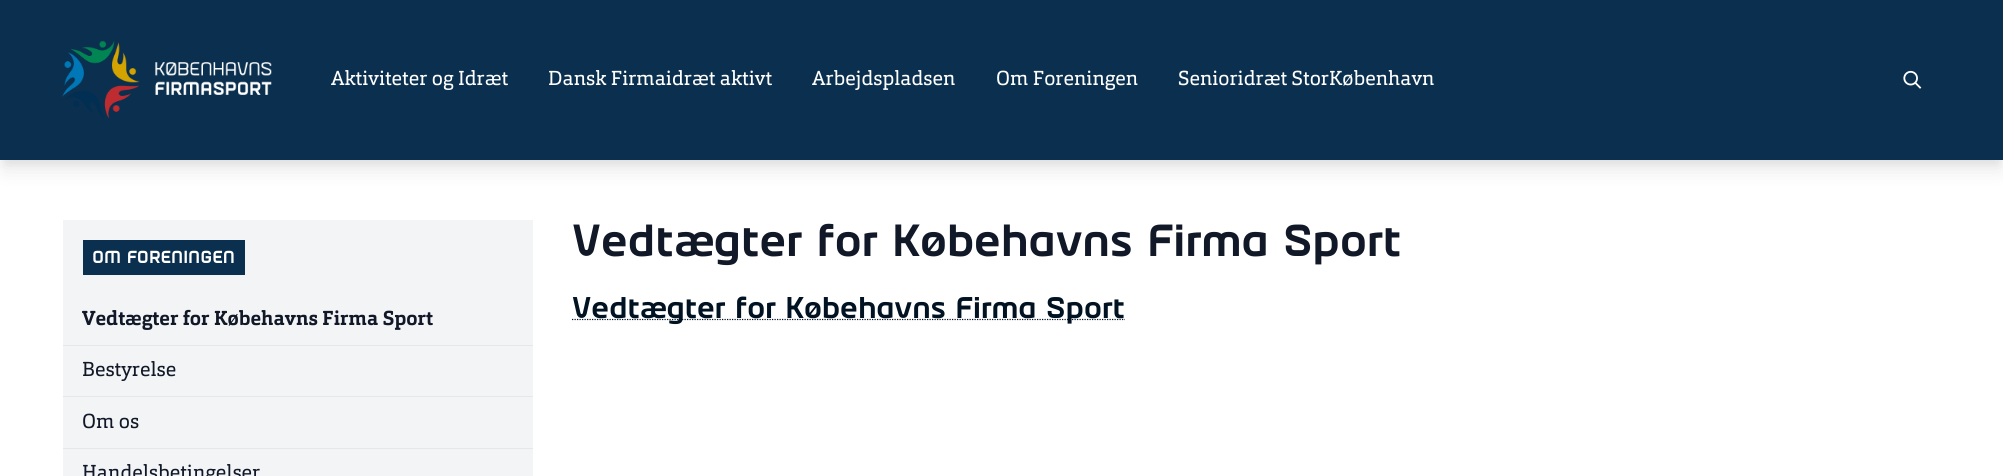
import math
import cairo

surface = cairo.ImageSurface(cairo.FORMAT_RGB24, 2003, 476)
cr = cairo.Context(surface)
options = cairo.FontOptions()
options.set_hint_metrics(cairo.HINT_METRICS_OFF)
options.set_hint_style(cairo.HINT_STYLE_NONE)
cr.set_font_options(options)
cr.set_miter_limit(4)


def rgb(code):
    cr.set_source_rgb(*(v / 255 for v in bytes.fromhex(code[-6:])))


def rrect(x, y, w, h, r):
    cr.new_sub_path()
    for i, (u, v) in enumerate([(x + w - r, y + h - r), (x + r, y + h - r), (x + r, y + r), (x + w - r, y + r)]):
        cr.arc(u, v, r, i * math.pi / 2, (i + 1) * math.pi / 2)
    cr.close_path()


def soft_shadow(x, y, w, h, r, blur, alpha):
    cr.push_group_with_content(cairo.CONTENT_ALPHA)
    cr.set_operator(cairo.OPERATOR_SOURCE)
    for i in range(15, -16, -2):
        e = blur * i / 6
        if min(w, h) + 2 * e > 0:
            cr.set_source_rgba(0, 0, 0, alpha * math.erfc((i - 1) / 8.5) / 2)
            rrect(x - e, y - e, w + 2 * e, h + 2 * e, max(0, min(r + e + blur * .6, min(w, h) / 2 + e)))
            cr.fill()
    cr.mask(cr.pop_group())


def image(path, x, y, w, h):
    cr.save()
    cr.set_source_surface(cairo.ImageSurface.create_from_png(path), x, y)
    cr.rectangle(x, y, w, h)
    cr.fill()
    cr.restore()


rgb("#ffffff")
cr.paint()
rgb("#000000")
soft_shadow(3, 8, 1998, 155, 0, 4, 0.05)
soft_shadow(4, 16, 1996, 153, 0, 9.5, 0.1)
rgb("#0b304f")
cr.rectangle(0, 0, 2003, 160)
cr.fill()
image("img/1.png", 62, 40, 210, 78)
image("img/2.png", 1903, 70, 19, 19)
for x, y, w, h, color in [
    (63, 220, 470, 256, "#f3f4f6"),
    (83, 240, 162, 35, "#0b304f"),
    (63, 345, 470, 1, "#e5e7eb"),
    (63, 396, 470, 1, "#e5e7eb"),
    (63, 448, 470, 1, "#e5e7eb"),
]:
    rgb(color)
    cr.rectangle(x, y, w, h)
    cr.fill()
cr.new_path()
cr.move_to(572, 319.5)
cr.line_to(1125, 319.5)
rgb("#011222")
cr.set_line_width(1.2)
cr.set_dash([1.25, 1.25])
cr.stroke()
cr.select_font_face("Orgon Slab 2")
cr.set_font_size(20)
rgb("#ffffff")
for x, y, s in [
    (331, 85, "Aktiviteter og Idræt"),
    (548, 85, "Dansk Firmaidræt aktivt"),
    (812, 85, "Arbejdspladsen"),
    (996, 85, "Om Foreningen"),
    (1178, 85, "Senioridræt StorKøbenhavn"),
]:
    cr.move_to(x, y)
    cr.show_text(s)
cr.select_font_face("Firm", cairo.FONT_SLANT_NORMAL, cairo.FONT_WEIGHT_BOLD)
cr.set_font_size(17.5)
cr.move_to(92, 263)
cr.show_text("OM FORENINGEN")
cr.select_font_face("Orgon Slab")
cr.set_font_size(20)
rgb("#111827")
cr.move_to(82, 325)
cr.show_text("Vedtægter for Købehavns Firma Sport")
cr.select_font_face("Orgon Slab 2")
for x, y, s in [
    (82, 376, "Bestyrelse"),
    (82, 428, "Om os"),
    (82, 479, "Handelsbetingelser"),
]:
    cr.move_to(x, y)
    cr.show_text(s)
cr.select_font_face("Firm", cairo.FONT_SLANT_NORMAL, cairo.FONT_WEIGHT_BOLD)
cr.set_font_size(45)
cr.move_to(572, 256)
cr.show_text("Vedtægter for Købehavns Firma Sport")
cr.set_font_size(30)
rgb("#011222")
cr.move_to(572, 318)
cr.show_text("Vedtægter for Købehavns Firma Sport")
surface.write_to_png("page.png")
